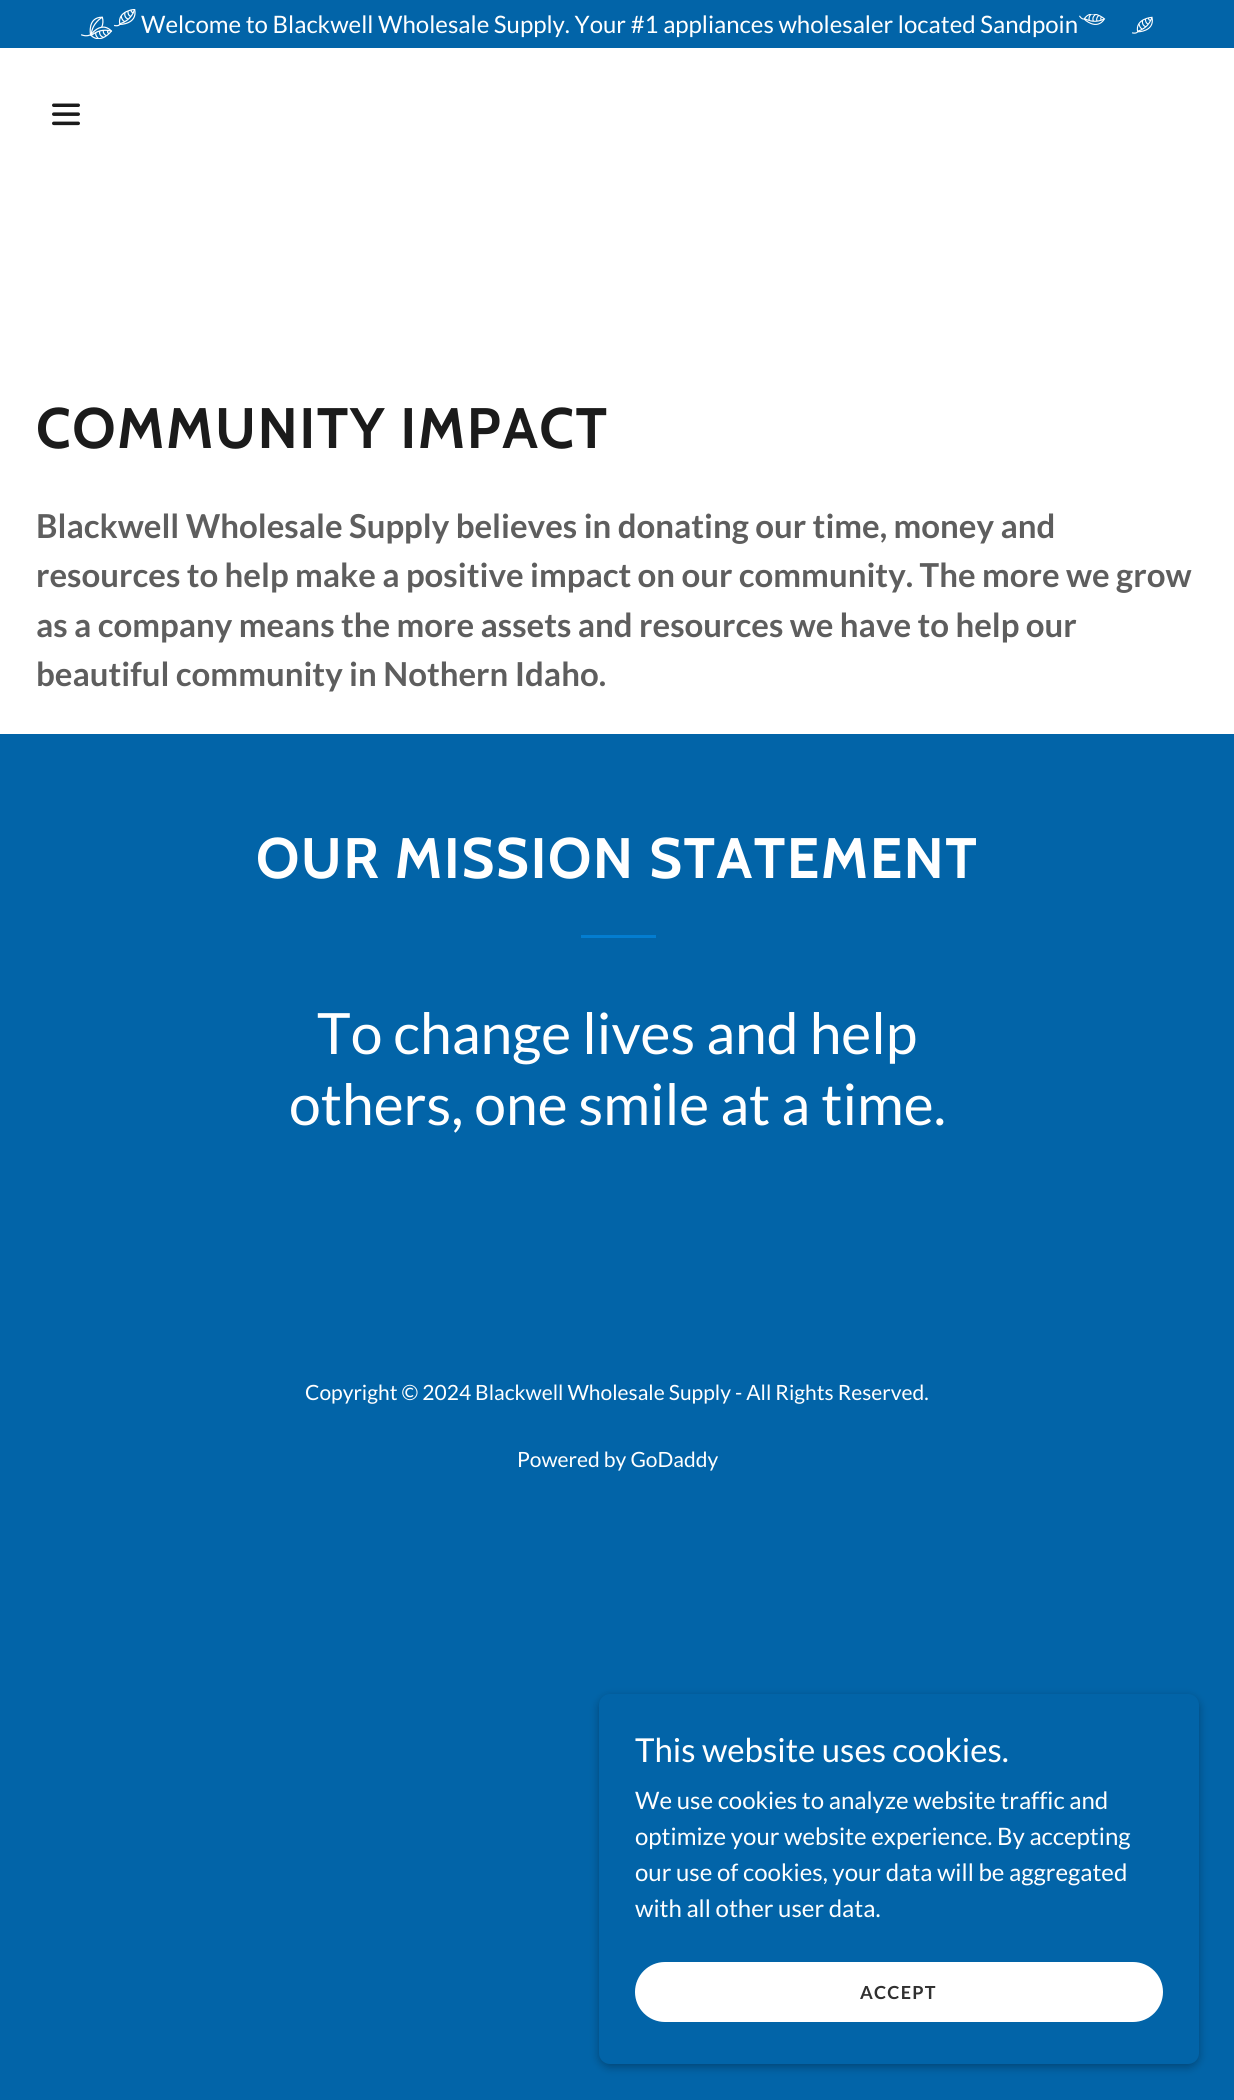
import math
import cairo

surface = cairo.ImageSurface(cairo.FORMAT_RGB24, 1234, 2100)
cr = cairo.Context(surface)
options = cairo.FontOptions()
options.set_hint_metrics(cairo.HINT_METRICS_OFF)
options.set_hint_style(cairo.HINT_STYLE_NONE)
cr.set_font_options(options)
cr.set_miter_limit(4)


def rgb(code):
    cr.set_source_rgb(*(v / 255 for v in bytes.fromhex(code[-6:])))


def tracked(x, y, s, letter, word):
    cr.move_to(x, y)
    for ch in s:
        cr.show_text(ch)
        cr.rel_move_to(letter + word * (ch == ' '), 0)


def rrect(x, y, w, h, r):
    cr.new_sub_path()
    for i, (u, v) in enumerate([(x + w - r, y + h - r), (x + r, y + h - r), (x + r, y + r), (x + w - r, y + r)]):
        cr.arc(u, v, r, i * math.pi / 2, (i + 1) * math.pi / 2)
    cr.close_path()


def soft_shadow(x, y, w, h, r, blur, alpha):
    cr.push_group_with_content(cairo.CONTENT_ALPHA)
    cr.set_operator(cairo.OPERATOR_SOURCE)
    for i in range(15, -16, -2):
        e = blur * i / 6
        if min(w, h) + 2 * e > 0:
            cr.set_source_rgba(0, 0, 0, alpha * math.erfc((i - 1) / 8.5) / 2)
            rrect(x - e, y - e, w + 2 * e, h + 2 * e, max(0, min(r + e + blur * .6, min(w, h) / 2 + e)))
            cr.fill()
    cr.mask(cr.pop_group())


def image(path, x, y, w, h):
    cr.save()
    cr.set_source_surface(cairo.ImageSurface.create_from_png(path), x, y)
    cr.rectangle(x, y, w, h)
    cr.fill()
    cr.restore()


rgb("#0264a8")
cr.paint()
rgb("#ffffff")
cr.rectangle(0, 48, 1234, 686)
cr.fill()
image("img/1.png", 81, 9, 55, 30)
image("img/2.png", 1079, 14, 74, 20)
image("img/3.png", 52, 103, 28, 23)
rgb("#037dd1")
cr.rectangle(581, 935, 75, 3)
cr.fill()
rgb("#000000")
soft_shadow(599, 1697, 600, 370, 11, 4.5, 0.3)
rgb("#0264a8")
rrect(599, 1694, 600, 370, 11)
cr.fill()
rgb("#ffffff")
rrect(635, 1962, 528, 60, 30)
cr.fill()
cr.select_font_face("Lato")
cr.set_font_size(24)
cr.move_to(141, 33)
cr.show_text("Welcome to Blackwell Wholesale Supply. Your #1 appliances wholesaler located Sandpoin")
cr.select_font_face("Cabin", cairo.FONT_SLANT_NORMAL, cairo.FONT_WEIGHT_BOLD)
cr.set_font_size(57)
rgb("#1b1b1b")
tracked(36, 448, "COMMUNITY IMPACT", 1.5, 0)
cr.select_font_face("Lato", cairo.FONT_SLANT_NORMAL, cairo.FONT_WEIGHT_BOLD)
cr.set_font_size(33)
rgb("#5e5e5e")
for x, y, s in [
    (36, 538, "Blackwell Wholesale Supply believes in donating our time, money and"),
    (36, 587, "resources to help make a positive impact on our community. The more we grow"),
    (36, 637, "as a company means the more assets and resources we have to help our"),
    (36, 686, "beautiful community in Nothern Idaho."),
]:
    cr.move_to(x, y)
    cr.show_text(s)
cr.select_font_face("Cabin", cairo.FONT_SLANT_NORMAL, cairo.FONT_WEIGHT_BOLD)
cr.set_font_size(57)
rgb("#ffffff")
tracked(256, 878, "OUR MISSION STATEMENT", 1.5, 0)
cr.select_font_face("Lato")
cr.move_to(317, 1054)
cr.show_text("To change lives and help")
cr.move_to(289, 1125)
cr.show_text("others, one smile at a time.")
cr.set_font_size(21)
cr.move_to(305, 1400)
cr.show_text("Copyright © 2024 Blackwell Wholesale Supply - All Rights Reserved.")
cr.move_to(517, 1467)
cr.show_text("Powered by GoDaddy")
cr.set_font_size(33)
cr.move_to(635, 1762)
cr.show_text("This website uses cookies.")
cr.set_font_size(24)
for x, y, s in [
    (635, 1809, "We use cookies to analyze website traffic and"),
    (635, 1845, "optimize your website experience. By accepting"),
    (635, 1881, "our use of cookies, your data will be aggregated"),
    (635, 1917, "with all other user data."),
]:
    cr.move_to(x, y)
    cr.show_text(s)
cr.select_font_face("Lato", cairo.FONT_SLANT_NORMAL, cairo.FONT_WEIGHT_BOLD)
cr.set_font_size(18)
rgb("#303030")
tracked(860, 1999, "ACCEPT", 1.25, 0)
surface.write_to_png("page.png")
